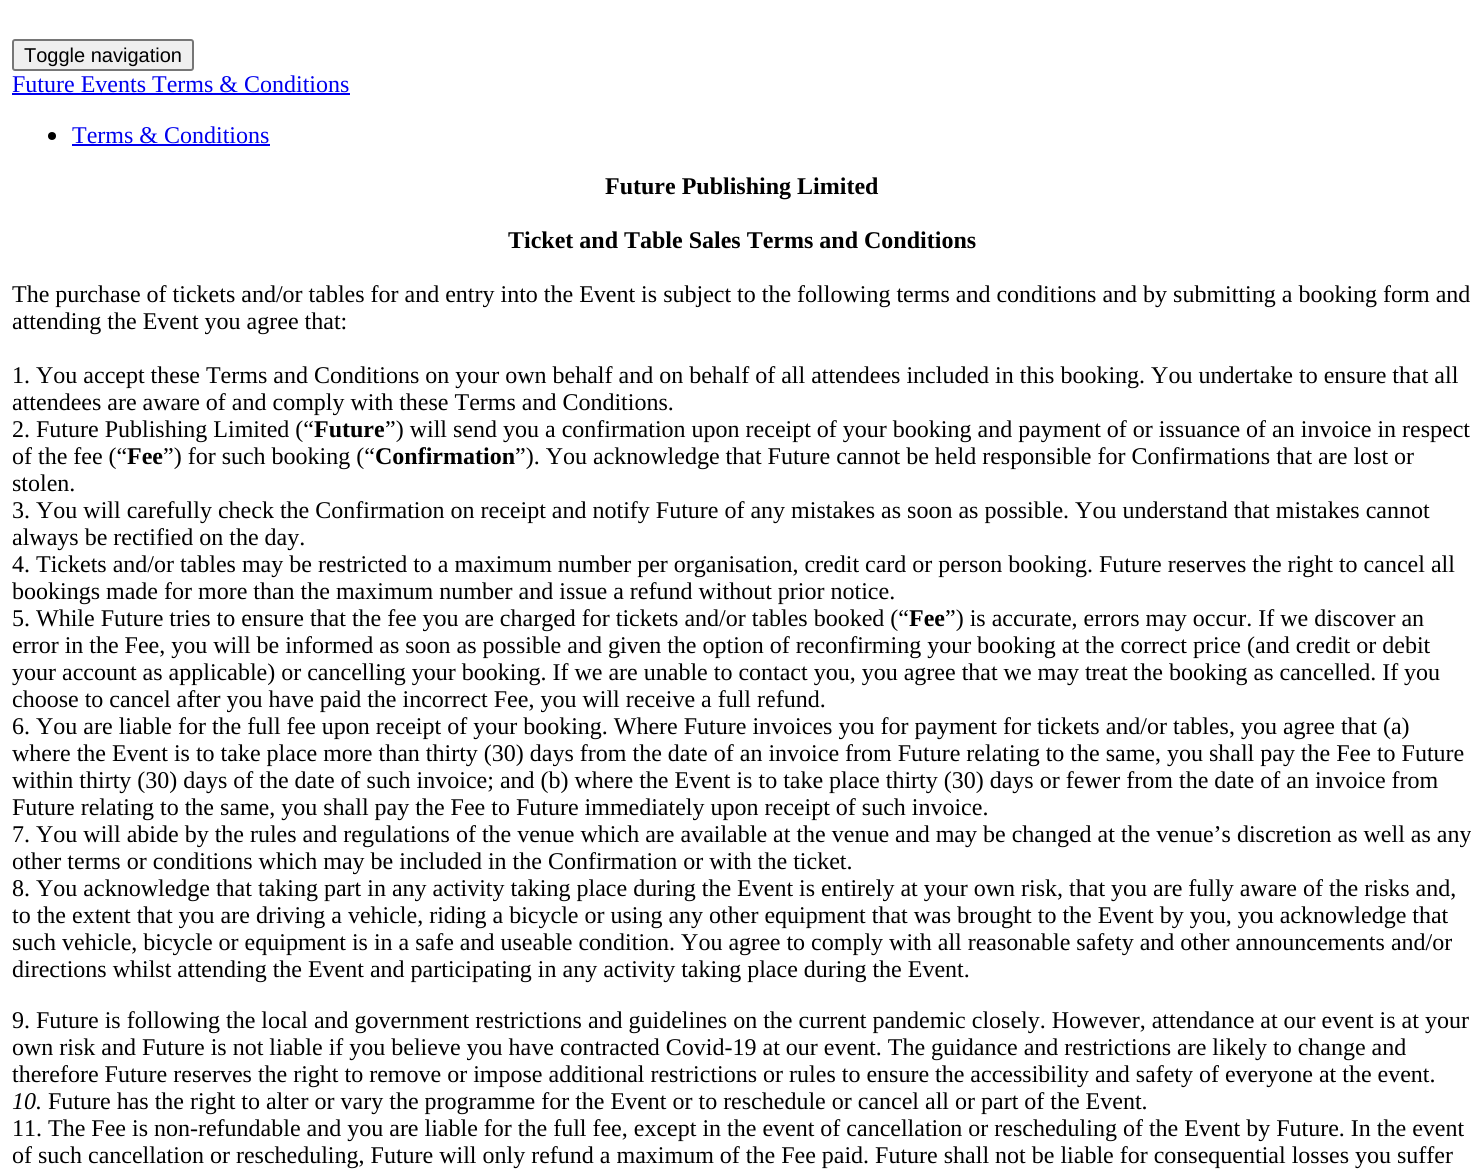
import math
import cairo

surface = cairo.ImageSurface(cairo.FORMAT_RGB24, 1483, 1171)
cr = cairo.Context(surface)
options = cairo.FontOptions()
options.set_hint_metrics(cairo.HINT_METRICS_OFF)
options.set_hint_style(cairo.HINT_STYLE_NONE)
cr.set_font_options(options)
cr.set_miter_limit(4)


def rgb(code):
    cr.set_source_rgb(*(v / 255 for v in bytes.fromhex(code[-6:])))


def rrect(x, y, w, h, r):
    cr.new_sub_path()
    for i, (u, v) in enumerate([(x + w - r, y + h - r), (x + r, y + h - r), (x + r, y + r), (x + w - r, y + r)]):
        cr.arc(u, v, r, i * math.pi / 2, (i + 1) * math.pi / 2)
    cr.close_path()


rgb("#ffffff")
cr.paint()
rgb("#efefef")
rrect(13, 40, 180, 30, 2)
cr.fill_preserve()
rgb("#767676")
cr.stroke()
rgb("#0000ee")
cr.rectangle(12, 93, 338, 2)
cr.fill()
rgb("#000000")
cr.arc(52, 136, 4, 0, 2 * math.pi)
cr.fill()
rgb("#0000ee")
cr.rectangle(72, 144, 198, 2)
cr.fill()
cr.select_font_face("Liberation Sans")
cr.set_font_size(20)
rgb("#000000")
cr.move_to(24, 62)
cr.show_text("Toggle navigation")
cr.select_font_face("Liberation Serif")
cr.set_font_size(24)
rgb("#0000ee")
cr.move_to(12, 92)
cr.show_text("Future Events Terms & Conditions")
cr.move_to(72, 143)
cr.show_text("Terms & Conditions")
cr.select_font_face("Liberation Serif", cairo.FONT_SLANT_NORMAL, cairo.FONT_WEIGHT_BOLD)
rgb("#000000")
cr.move_to(605, 194)
cr.show_text("Future Publishing Limited")
cr.move_to(508, 248)
cr.show_text("Ticket and Table Sales Terms and Conditions")
cr.select_font_face("Liberation Serif")
for x, y, s in [
    (12, 302, "The purchase of tickets and/or tables for and entry into the Event is subject to the following terms and conditions and by submitting a booking form and"),
    (12, 329, "attending the Event you agree that:"),
    (12, 383, "1. You accept these Terms and Conditions on your own behalf and on behalf of all attendees included in this booking. You undertake to ensure that all"),
    (12, 410, "attendees are aware of and comply with these Terms and Conditions."),
    (12, 437, "2. Future Publishing Limited (“"),
]:
    cr.move_to(x, y)
    cr.show_text(s)
cr.select_font_face("Liberation Serif", cairo.FONT_SLANT_NORMAL, cairo.FONT_WEIGHT_BOLD)
cr.move_to(314, 437)
cr.show_text("Future")
cr.select_font_face("Liberation Serif")
cr.move_to(385, 437)
cr.show_text("”) will send you a confirmation upon receipt of your booking and payment of or issuance of an invoice in respect")
cr.move_to(12, 464)
cr.show_text("of the fee (“")
cr.select_font_face("Liberation Serif", cairo.FONT_SLANT_NORMAL, cairo.FONT_WEIGHT_BOLD)
cr.move_to(127, 464)
cr.show_text("Fee")
cr.select_font_face("Liberation Serif")
cr.move_to(163, 464)
cr.show_text("”) for such booking (“")
cr.select_font_face("Liberation Serif", cairo.FONT_SLANT_NORMAL, cairo.FONT_WEIGHT_BOLD)
cr.move_to(375, 464)
cr.show_text("Confirmation")
cr.select_font_face("Liberation Serif")
for x, y, s in [
    (515, 464, "”). You acknowledge that Future cannot be held responsible for Confirmations that are lost or"),
    (12, 491, "stolen."),
    (12, 518, "3. You will carefully check the Confirmation on receipt and notify Future of any mistakes as soon as possible. You understand that mistakes cannot"),
    (12, 545, "always be rectified on the day."),
    (12, 572, "4. Tickets and/or tables may be restricted to a maximum number per organisation, credit card or person booking. Future reserves the right to cancel all"),
    (12, 599, "bookings made for more than the maximum number and issue a refund without prior notice."),
    (12, 626, "5. While Future tries to ensure that the fee you are charged for tickets and/or tables booked (“"),
]:
    cr.move_to(x, y)
    cr.show_text(s)
cr.select_font_face("Liberation Serif", cairo.FONT_SLANT_NORMAL, cairo.FONT_WEIGHT_BOLD)
cr.move_to(909, 626)
cr.show_text("Fee")
cr.select_font_face("Liberation Serif")
for x, y, s in [
    (945, 626, "”) is accurate, errors may occur. If we discover an"),
    (12, 653, "error in the Fee, you will be informed as soon as possible and given the option of reconfirming your booking at the correct price (and credit or debit"),
    (12, 680, "your account as applicable) or cancelling your booking. If we are unable to contact you, you agree that we may treat the booking as cancelled. If you"),
    (12, 707, "choose to cancel after you have paid the incorrect Fee, you will receive a full refund."),
    (12, 734, "6. You are liable for the full fee upon receipt of your booking. Where Future invoices you for payment for tickets and/or tables, you agree that (a)"),
    (12, 761, "where the Event is to take place more than thirty (30) days from the date of an invoice from Future relating to the same, you shall pay the Fee to Future"),
    (12, 788, "within thirty (30) days of the date of such invoice; and (b) where the Event is to take place thirty (30) days or fewer from the date of an invoice from"),
    (12, 815, "Future relating to the same, you shall pay the Fee to Future immediately upon receipt of such invoice."),
    (12, 842, "7. You will abide by the rules and regulations of the venue which are available at the venue and may be changed at the venue’s discretion as well as any"),
    (12, 869, "other terms or conditions which may be included in the Confirmation or with the ticket."),
    (12, 896, "8. You acknowledge that taking part in any activity taking place during the Event is entirely at your own risk, that you are fully aware of the risks and,"),
    (12, 923, "to the extent that you are driving a vehicle, riding a bicycle or using any other equipment that was brought to the Event by you, you acknowledge that"),
    (12, 950, "such vehicle, bicycle or equipment is in a safe and useable condition. You agree to comply with all reasonable safety and other announcements and/or"),
    (12, 977, "directions whilst attending the Event and participating in any activity taking place during the Event."),
    (12, 1028, "9. Future is following the local and government restrictions and guidelines on the current pandemic closely. However, attendance at our event is at your"),
    (12, 1055, "own risk and Future is not liable if you believe you have contracted Covid-19 at our event. The guidance and restrictions are likely to change and"),
    (12, 1082, "therefore Future reserves the right to remove or impose additional restrictions or rules to ensure the accessibility and safety of everyone at the event."),
]:
    cr.move_to(x, y)
    cr.show_text(s)
cr.select_font_face("Liberation Serif", cairo.FONT_SLANT_ITALIC)
cr.move_to(12, 1109)
cr.show_text("10.")
cr.select_font_face("Liberation Serif")
for x, y, s in [
    (48, 1109, "Future has the right to alter or vary the programme for the Event or to reschedule or cancel all or part of the Event."),
    (12, 1136, "11. The Fee is non-refundable and you are liable for the full fee, except in the event of cancellation or rescheduling of the Event by Future. In the event"),
    (12, 1163, "of such cancellation or rescheduling, Future will only refund a maximum of the Fee paid. Future shall not be liable for consequential losses you suffer"),
]:
    cr.move_to(x, y)
    cr.show_text(s)
surface.write_to_png("page.png")
